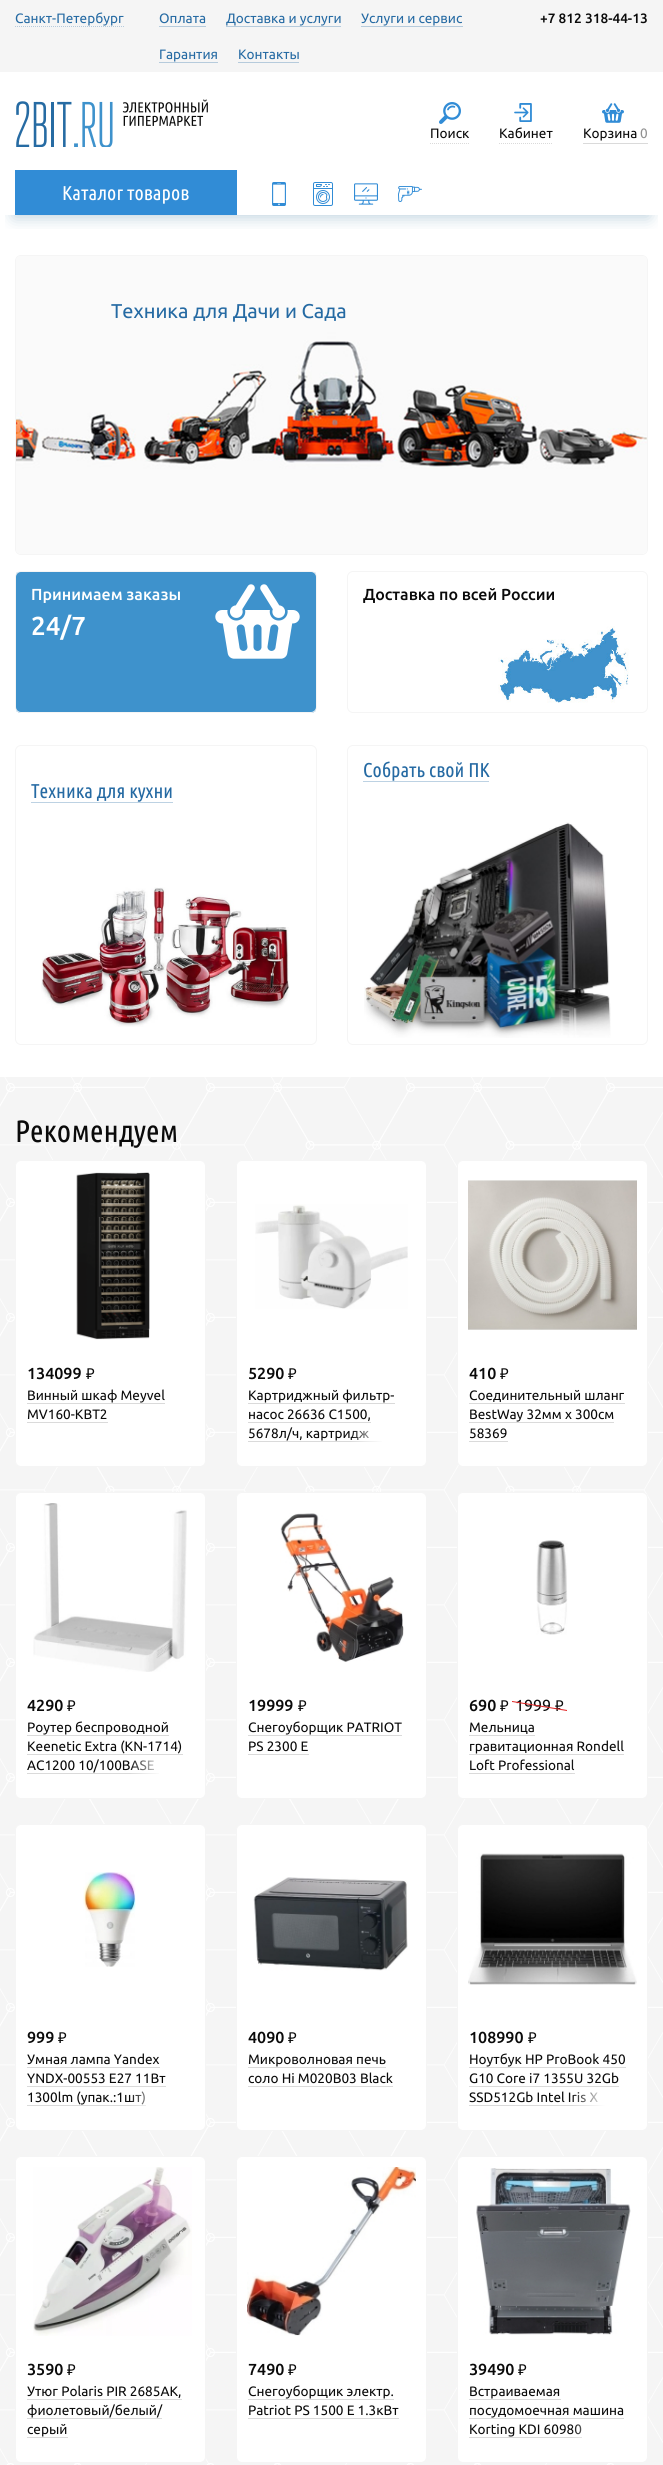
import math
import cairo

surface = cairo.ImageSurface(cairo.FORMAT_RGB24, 663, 2465)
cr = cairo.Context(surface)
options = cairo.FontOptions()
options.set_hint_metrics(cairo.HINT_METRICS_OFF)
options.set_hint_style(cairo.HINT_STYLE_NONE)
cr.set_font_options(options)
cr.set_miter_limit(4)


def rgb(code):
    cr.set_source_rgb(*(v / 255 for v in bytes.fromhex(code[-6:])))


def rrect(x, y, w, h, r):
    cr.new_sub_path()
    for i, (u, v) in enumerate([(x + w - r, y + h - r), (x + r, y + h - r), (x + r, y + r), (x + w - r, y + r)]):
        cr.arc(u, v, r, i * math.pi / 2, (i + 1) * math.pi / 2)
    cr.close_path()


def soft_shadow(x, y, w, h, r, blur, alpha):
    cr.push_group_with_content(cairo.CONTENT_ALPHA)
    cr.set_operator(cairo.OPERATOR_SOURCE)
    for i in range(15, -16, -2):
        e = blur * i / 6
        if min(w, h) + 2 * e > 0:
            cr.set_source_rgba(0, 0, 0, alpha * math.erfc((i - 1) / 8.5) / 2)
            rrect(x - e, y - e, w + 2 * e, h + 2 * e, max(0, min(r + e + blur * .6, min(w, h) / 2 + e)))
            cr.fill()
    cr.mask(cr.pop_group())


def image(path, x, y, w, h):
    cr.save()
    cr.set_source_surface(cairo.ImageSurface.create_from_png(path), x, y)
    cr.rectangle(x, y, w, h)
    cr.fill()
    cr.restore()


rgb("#ffffff")
cr.paint()
rgb("#f5f5f5")
cr.rectangle(0, 0, 663, 72)
cr.fill()
cr.new_path()
cr.move_to(15, 26.5)
cr.line_to(124, 26.5)
rgb("#b6cbdc")
cr.set_line_width(1)
cr.set_dash([1, 1])
cr.stroke()
for x, y, w, h, color in [
    (159, 26, 47, 1, "#b6cbdc"),
    (226, 26, 115, 1, "#b6cbdc"),
    (361, 26, 102, 1, "#b6cbdc"),
    (159, 62, 59, 1, "#b6cbdc"),
    (238, 62, 61, 1, "#b6cbdc"),
]:
    rgb(color)
    cr.rectangle(x, y, w, h)
    cr.fill()
image("img/1.png", 16, 99, 192, 48)
cr.new_path()
cr.move_to(430, 143.5)
cr.line_to(469, 143.5)
rgb("#dadada")
cr.stroke()
image("img/2.png", 439, 102, 22, 22)
cr.new_path()
cr.move_to(499, 143.5)
cr.line_to(553, 143.5)
cr.stroke()
image("img/3.png", 514, 103, 18, 19)
cr.rectangle(583, 143, 65, 1)
cr.fill()
image("img/4.png", 602, 103, 22, 20)
cr.save()
cr.rectangle(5, 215, 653, 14)
cr.clip()
rgb("#1d628c")
soft_shadow(14, 200, 635, 17, 0, 8, 0.3)
cr.restore()
rgb("#318cd6")
cr.rectangle(15, 170, 222, 45)
cr.fill()
image("img/5.png", 272, 182, 14, 24)
image("img/6.png", 313, 182, 20, 24)
image("img/7.png", 354, 183, 24, 22)
image("img/8.png", 398, 186, 24, 16)
rrect(15.5, 255.5, 632, 299, 5.5)
rgb("#f5f5f5")
cr.set_dash([])
cr.stroke()
image("img/9.png", 16, 256, 631, 298)
image("img/10.png", 16, 572, 300, 141)
rrect(15.5, 571.5, 301, 141, 5.5)
cr.stroke()
image("img/11.png", 215, 584, 85, 75)
rrect(347.5, 571.5, 300, 141, 5.5)
cr.stroke()
image("img/12.png", 498, 626, 131, 77)
image("img/13.png", 364, 822, 247, 216)
rrect(347.5, 745.5, 300, 299, 5.5)
cr.stroke()
rgb("#bdd2e3")
cr.rectangle(363, 781, 126, 1)
cr.fill()
image("img/14.png", 41, 887, 249, 140)
rrect(15.5, 745.5, 301, 299, 5.5)
rgb("#f5f5f5")
cr.stroke()
rgb("#bdd2e3")
cr.rectangle(31, 802, 142, 1)
cr.fill()
rgb("#f5f5f5")
cr.rectangle(0, 1077, 663, 1388)
cr.fill()
image("img/15.png", 0, 1077, 663, 1388)
rgb("#ffffff")
rrect(15.5, 1160.5, 190, 306, 5.5)
cr.fill_preserve()
rgb("#f5f5f5")
cr.stroke()
rgb("#dadada")
cr.rectangle(27, 1403, 138, 1)
cr.fill()
cr.rectangle(27, 1422, 81, 1)
cr.fill()
image("img/16.png", 76, 1172, 74, 168)
rgb("#ffffff")
rrect(236.5, 1160.5, 190, 306, 5.5)
cr.fill_preserve()
rgb("#f5f5f5")
cr.stroke()
for x, y, w, h, color in [
    (248, 1403, 147, 1, "#dadada"),
    (248, 1422, 123, 1, "#dadada"),
    (248, 1441, 134, 1, "#dadada"),
]:
    rgb(color)
    cr.rectangle(x, y, w, h)
    cr.fill()
image("img/17.png", 255, 1204, 153, 105)
rgb("#ffffff")
rrect(457.5, 1160.5, 190, 306, 5.5)
cr.fill_preserve()
rgb("#f5f5f5")
cr.stroke()
for x, y, w, h, color in [
    (469, 1403, 156, 1, "#dadada"),
    (469, 1422, 145, 1, "#dadada"),
    (469, 1441, 39, 1, "#dadada"),
]:
    rgb(color)
    cr.rectangle(x, y, w, h)
    cr.fill()
image("img/18.png", 468, 1180, 169, 150)
rgb("#ffffff")
rrect(15.5, 1492.5, 190, 306, 5.5)
cr.fill_preserve()
rgb("#f5f5f5")
cr.stroke()
for x, y, w, h, color in [
    (27, 1735, 142, 1, "#dadada"),
    (27, 1754, 156, 1, "#dadada"),
    (27, 1773, 132, 1, "#dadada"),
]:
    rgb(color)
    cr.rectangle(x, y, w, h)
    cr.fill()
image("img/19.png", 33, 1503, 154, 169)
rgb("#ffffff")
rrect(236.5, 1492.5, 190, 306, 5.5)
cr.fill_preserve()
rgb("#f5f5f5")
cr.stroke()
rgb("#dadada")
cr.rectangle(248, 1735, 154, 1)
cr.fill()
cr.rectangle(248, 1754, 61, 1)
cr.fill()
image("img/20.png", 280, 1513, 124, 149)
rgb("#ffffff")
rrect(457.5, 1492.5, 190, 306, 5.5)
cr.fill_preserve()
rgb("#f5f5f5")
cr.stroke()
for x, y, w, h, color in [
    (469, 1735, 66, 1, "#dadada"),
    (469, 1754, 155, 1, "#dadada"),
    (469, 1773, 106, 1, "#dadada"),
]:
    rgb(color)
    cr.rectangle(x, y, w, h)
    cr.fill()
image("img/21.png", 536, 1540, 32, 95)
rgb("#ffffff")
rrect(15.5, 1824.5, 190, 306, 5.5)
cr.fill_preserve()
rgb("#f5f5f5")
cr.stroke()
for x, y, w, h, color in [
    (27, 2067, 133, 1, "#dadada"),
    (27, 2086, 139, 1, "#dadada"),
    (27, 2105, 119, 1, "#dadada"),
]:
    rgb(color)
    cr.rectangle(x, y, w, h)
    cr.fill()
image("img/22.png", 83, 1872, 53, 95)
rgb("#ffffff")
rrect(236.5, 1824.5, 190, 306, 5.5)
cr.fill_preserve()
rgb("#f5f5f5")
cr.stroke()
rgb("#dadada")
cr.rectangle(248, 2067, 138, 1)
cr.fill()
cr.rectangle(248, 2086, 145, 1)
cr.fill()
image("img/23.png", 253, 1877, 155, 94)
rgb("#ffffff")
rrect(457.5, 1824.5, 190, 306, 5.5)
cr.fill_preserve()
rgb("#f5f5f5")
cr.stroke()
for x, y, w, h, color in [
    (469, 2067, 157, 1, "#dadada"),
    (469, 2086, 150, 1, "#dadada"),
    (469, 2105, 137, 1, "#dadada"),
]:
    rgb(color)
    cr.rectangle(x, y, w, h)
    cr.fill()
image("img/24.png", 468, 1853, 169, 132)
rgb("#ffffff")
rrect(15.5, 2156.5, 190, 306, 5.5)
cr.fill_preserve()
rgb("#f5f5f5")
cr.stroke()
for x, y, w, h, color in [
    (27, 2399, 155, 1, "#dadada"),
    (27, 2418, 135, 1, "#dadada"),
    (27, 2437, 41, 1, "#dadada"),
]:
    rgb(color)
    cr.rectangle(x, y, w, h)
    cr.fill()
image("img/25.png", 33, 2167, 159, 169)
rgb("#ffffff")
rrect(236.5, 2156.5, 190, 306, 5.5)
cr.fill_preserve()
rgb("#f5f5f5")
cr.stroke()
rgb("#dadada")
cr.rectangle(248, 2399, 146, 1)
cr.fill()
cr.rectangle(248, 2418, 151, 1)
cr.fill()
image("img/26.png", 247, 2167, 169, 169)
rgb("#ffffff")
rrect(457.5, 2156.5, 190, 306, 5.5)
cr.fill_preserve()
rgb("#f5f5f5")
cr.stroke()
for x, y, w, h, color in [
    (469, 2399, 92, 1, "#dadada"),
    (469, 2418, 155, 1, "#dadada"),
    (469, 2437, 113, 1, "#dadada"),
]:
    rgb(color)
    cr.rectangle(x, y, w, h)
    cr.fill()
image("img/27.png", 476, 2168, 155, 167)
cr.select_font_face("Ubuntu")
cr.set_font_size(13.6)
rgb("#256aa3")
for x, y, s in [
    (15, 23, "Санкт-Петербург"),
    (159, 23, "Оплата"),
    (226, 23, "Доставка и услуги"),
    (361, 23, "Услуги и сервис"),
    (159, 59, "Гарантия"),
    (238, 59, "Контакты"),
]:
    cr.move_to(x, y)
    cr.show_text(s)
cr.select_font_face("Ubuntu Medium")
rgb("#0a0a0a")
cr.move_to(540, 23)
cr.show_text("+7 812 318-44-13")
cr.select_font_face("Ubuntu")
for x, y, s in [
    (430, 138, "Поиск"),
    (499, 138, "Кабинет"),
    (583, 138, "Корзина"),
]:
    cr.move_to(x, y)
    cr.show_text(s)
rgb("#919191")
cr.move_to(640, 138)
cr.show_text("0")
cr.select_font_face("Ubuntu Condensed")
cr.set_font_size(20)
rgb("#ffffff")
cr.move_to(62, 200)
cr.show_text("Каталог товаров")
cr.select_font_face("Ubuntu")
rgb("#256aa3")
cr.move_to(111, 318)
cr.show_text("Техника для Дачи и Сада")
cr.select_font_face("Ubuntu Medium")
cr.set_font_size(16)
rgb("#ffffff")
cr.move_to(31, 600)
cr.show_text("Принимаем заказы")
cr.set_font_size(26)
cr.move_to(31, 635)
cr.show_text("24/7")
cr.set_font_size(16)
rgb("#0a0a0a")
cr.move_to(363, 600)
cr.show_text("Доставка по всей России")
cr.select_font_face("Ubuntu Condensed")
cr.set_font_size(20)
rgb("#256aa3")
cr.move_to(363, 777)
cr.show_text("Собрать свой ПК")
cr.move_to(31, 798)
cr.show_text("Техника для кухни")
cr.set_font_size(31)
rgb("#0a0a0a")
cr.move_to(15, 1142)
cr.show_text("Рекомендуем")
cr.select_font_face("Ubuntu Medium")
cr.set_font_size(16)
cr.move_to(27, 1379)
cr.show_text("134099")
cr.select_font_face("Noto Sans")
cr.set_font_size(15)
cr.move_to(86, 1379)
cr.show_text("₽")
cr.select_font_face("Ubuntu")
cr.set_font_size(13.6)
cr.move_to(27, 1400)
cr.show_text("Винный шкаф Meyvel")
cr.move_to(27, 1419)
cr.show_text("MV160-KBT2")
cr.select_font_face("Ubuntu Medium")
cr.set_font_size(16)
cr.move_to(248, 1379)
cr.show_text("5290")
cr.select_font_face("Noto Sans")
cr.set_font_size(15)
cr.move_to(288, 1379)
cr.show_text("₽")
cr.select_font_face("Ubuntu")
cr.set_font_size(13.6)
for x, y, s in [
    (248, 1400, "Картриджный фильтр-"),
    (248, 1419, "насос 26636 C1500,"),
    (248, 1438, "5678л/ч, картридж"),
]:
    cr.move_to(x, y)
    cr.show_text(s)
gradient = cairo.LinearGradient(350, 1438, 415, 1438)
gradient.add_color_stop_rgba(0, 1, 1, 1, 0)
gradient.add_color_stop_rgba(0.53, 1, 1, 1, 1)
gradient.add_color_stop_rgba(1, 1, 1, 1, 1)
cr.set_source(gradient)
cr.rectangle(351, 1430, 31, 12)
cr.fill()
cr.select_font_face("Ubuntu Medium")
cr.set_font_size(16)
rgb("#0a0a0a")
cr.move_to(469, 1379)
cr.show_text("410")
cr.select_font_face("Noto Sans")
cr.set_font_size(15)
cr.move_to(500, 1379)
cr.show_text("₽")
cr.select_font_face("Ubuntu")
cr.set_font_size(13.6)
for x, y, s in [
    (469, 1400, "Соединительный шланг"),
    (469, 1419, "BestWay 32мм х 300см"),
    (469, 1438, "58369"),
]:
    cr.move_to(x, y)
    cr.show_text(s)
cr.select_font_face("Ubuntu Medium")
cr.set_font_size(16)
cr.move_to(27, 1711)
cr.show_text("4290")
cr.select_font_face("Noto Sans")
cr.set_font_size(15)
cr.move_to(67, 1711)
cr.show_text("₽")
cr.select_font_face("Ubuntu")
cr.set_font_size(13.6)
for x, y, s in [
    (27, 1732, "Роутер беспроводной"),
    (27, 1751, "Keenetic Extra (KN-1714)"),
    (27, 1770, "AC1200 10/100BASE"),
]:
    cr.move_to(x, y)
    cr.show_text(s)
gradient = cairo.LinearGradient(129, 1770, 194, 1770)
gradient.add_color_stop_rgba(0, 1, 1, 1, 0)
gradient.add_color_stop_rgba(0.53, 1, 1, 1, 1)
gradient.add_color_stop_rgba(1, 1, 1, 1, 1)
cr.set_source(gradient)
cr.rectangle(131, 1760, 28, 14)
cr.fill()
cr.select_font_face("Ubuntu Medium")
cr.set_font_size(16)
rgb("#0a0a0a")
cr.move_to(248, 1711)
cr.show_text("19999")
cr.select_font_face("Noto Sans")
cr.set_font_size(15)
cr.move_to(298, 1711)
cr.show_text("₽")
cr.select_font_face("Ubuntu")
cr.set_font_size(13.6)
cr.move_to(248, 1732)
cr.show_text("Снегоуборщик PATRIOT")
cr.move_to(248, 1751)
cr.show_text("PS 2300 E")
cr.select_font_face("Ubuntu Medium")
cr.set_font_size(16)
cr.move_to(469, 1711)
cr.show_text("690")
cr.select_font_face("Noto Sans")
cr.set_font_size(15)
cr.move_to(500, 1711)
cr.show_text("₽")
cr.select_font_face("Ubuntu")
cr.set_font_size(16)
cr.move_to(515, 1711)
cr.show_text("1999")
cr.select_font_face("Noto Sans")
cr.set_font_size(15)
cr.move_to(555, 1711)
cr.show_text("₽")
rgb("#e12222")
cr.new_path()
cr.move_to(512, 1701)
cr.line_to(567, 1710)
cr.line_to(567, 1711)
cr.line_to(512, 1702)
cr.close_path()
cr.fill()
cr.select_font_face("Ubuntu")
cr.set_font_size(13.6)
rgb("#0a0a0a")
for x, y, s in [
    (469, 1732, "Мельница"),
    (469, 1751, "гравитационная Rondell"),
    (469, 1770, "Loft Professional"),
]:
    cr.move_to(x, y)
    cr.show_text(s)
gradient = cairo.LinearGradient(571, 1770, 636, 1770)
gradient.add_color_stop_rgba(0, 1, 1, 1, 0)
gradient.add_color_stop_rgba(0.53, 1, 1, 1, 1)
gradient.add_color_stop_rgba(1, 1, 1, 1, 1)
cr.set_source(gradient)
cr.rectangle(572, 1759, 3, 15)
cr.fill()
cr.select_font_face("Ubuntu Medium")
cr.set_font_size(16)
rgb("#0a0a0a")
cr.move_to(27, 2043)
cr.show_text("999")
cr.select_font_face("Noto Sans")
cr.set_font_size(15)
cr.move_to(58, 2043)
cr.show_text("₽")
cr.select_font_face("Ubuntu")
cr.set_font_size(13.6)
for x, y, s in [
    (27, 2064, "Умная лампа Yandex"),
    (27, 2083, "YNDX-00553 E27 11Вт"),
    (27, 2102, "1300lm (упак.:1шт)"),
]:
    cr.move_to(x, y)
    cr.show_text(s)
gradient = cairo.LinearGradient(129, 2102, 194, 2102)
gradient.add_color_stop_rgba(0, 1, 1, 1, 0)
gradient.add_color_stop_rgba(0.53, 1, 1, 1, 1)
gradient.add_color_stop_rgba(1, 1, 1, 1, 1)
cr.set_source(gradient)
cr.rectangle(130, 2091, 16, 15)
cr.fill()
cr.select_font_face("Ubuntu Medium")
cr.set_font_size(16)
rgb("#0a0a0a")
cr.move_to(248, 2043)
cr.show_text("4090")
cr.select_font_face("Noto Sans")
cr.set_font_size(15)
cr.move_to(288, 2043)
cr.show_text("₽")
cr.select_font_face("Ubuntu")
cr.set_font_size(13.6)
cr.move_to(248, 2064)
cr.show_text("Микроволновая печь")
cr.move_to(248, 2083)
cr.show_text("соло Hi M020B03 Black")
cr.select_font_face("Ubuntu Medium")
cr.set_font_size(16)
cr.move_to(469, 2043)
cr.show_text("108990")
cr.select_font_face("Noto Sans")
cr.set_font_size(15)
cr.move_to(528, 2043)
cr.show_text("₽")
cr.select_font_face("Ubuntu")
cr.set_font_size(13.6)
for x, y, s in [
    (469, 2064, "Ноутбук HP ProBook 450"),
    (469, 2083, "G10 Core i7 1355U 32Gb"),
    (469, 2102, "SSD512Gb Intel Iris X"),
]:
    cr.move_to(x, y)
    cr.show_text(s)
gradient = cairo.LinearGradient(571, 2102, 636, 2102)
gradient.add_color_stop_rgba(0, 1, 1, 1, 0)
gradient.add_color_stop_rgba(0.53, 1, 1, 1, 1)
gradient.add_color_stop_rgba(1, 1, 1, 1, 1)
cr.set_source(gradient)
cr.rectangle(573, 2092, 33, 14)
cr.fill()
cr.select_font_face("Ubuntu Medium")
cr.set_font_size(16)
rgb("#0a0a0a")
cr.move_to(27, 2375)
cr.show_text("3590")
cr.select_font_face("Noto Sans")
cr.set_font_size(15)
cr.move_to(67, 2375)
cr.show_text("₽")
cr.select_font_face("Ubuntu")
cr.set_font_size(13.6)
for x, y, s in [
    (27, 2396, "Утюг Polaris PIR 2685AK,"),
    (27, 2415, "фиолетовый/белый/"),
    (27, 2434, "серый"),
]:
    cr.move_to(x, y)
    cr.show_text(s)
cr.select_font_face("Ubuntu Medium")
cr.set_font_size(16)
cr.move_to(248, 2375)
cr.show_text("7490")
cr.select_font_face("Noto Sans")
cr.set_font_size(15)
cr.move_to(288, 2375)
cr.show_text("₽")
cr.select_font_face("Ubuntu")
cr.set_font_size(13.6)
cr.move_to(248, 2396)
cr.show_text("Снегоуборщик электр.")
cr.move_to(248, 2415)
cr.show_text("Patriot PS 1500 E 1.3кВт")
cr.select_font_face("Ubuntu Medium")
cr.set_font_size(16)
cr.move_to(469, 2375)
cr.show_text("39490")
cr.select_font_face("Noto Sans")
cr.set_font_size(15)
cr.move_to(518, 2375)
cr.show_text("₽")
cr.select_font_face("Ubuntu")
cr.set_font_size(13.6)
for x, y, s in [
    (469, 2396, "Встраиваемая"),
    (469, 2415, "посудомоечная машина"),
    (469, 2434, "Korting KDI 60980"),
]:
    cr.move_to(x, y)
    cr.show_text(s)
gradient = cairo.LinearGradient(571, 2434, 636, 2434)
gradient.add_color_stop_rgba(0, 1, 1, 1, 0)
gradient.add_color_stop_rgba(0.53, 1, 1, 1, 1)
gradient.add_color_stop_rgba(1, 1, 1, 1, 1)
cr.set_source(gradient)
cr.rectangle(572, 2424, 10, 14)
cr.fill()
surface.write_to_png("page.png")
